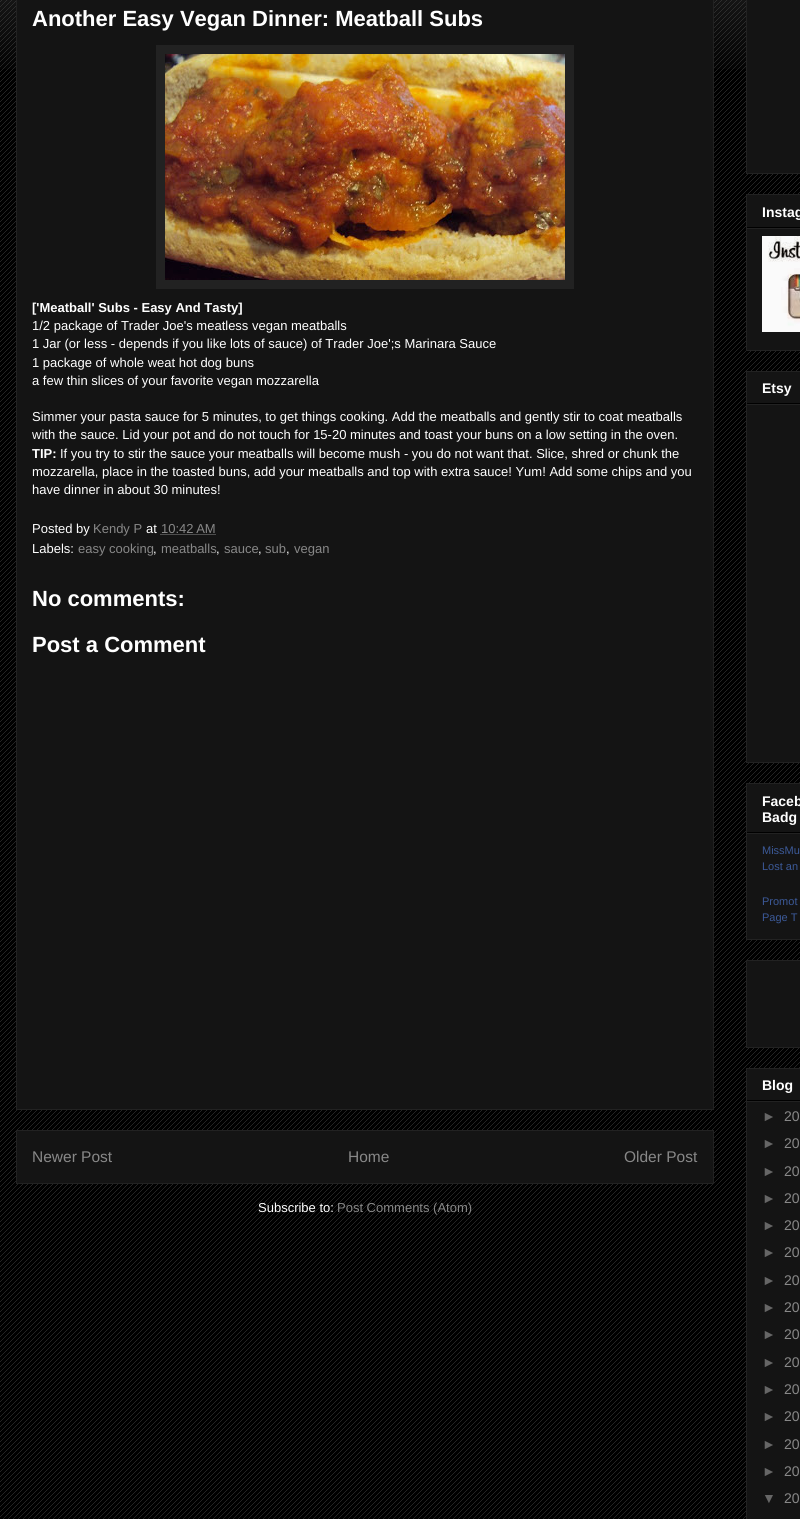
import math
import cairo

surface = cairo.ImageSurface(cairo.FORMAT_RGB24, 800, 1519)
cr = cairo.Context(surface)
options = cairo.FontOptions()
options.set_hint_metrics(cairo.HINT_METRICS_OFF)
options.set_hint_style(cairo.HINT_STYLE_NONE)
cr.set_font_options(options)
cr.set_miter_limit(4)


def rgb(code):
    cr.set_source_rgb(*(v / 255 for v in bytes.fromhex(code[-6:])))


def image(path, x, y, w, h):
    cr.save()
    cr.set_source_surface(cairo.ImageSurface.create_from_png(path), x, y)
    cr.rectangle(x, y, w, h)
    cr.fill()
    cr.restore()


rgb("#000000")
cr.paint()
image("img/1.png", 0, 0, 800, 1519)
image("img/2.png", 0, 0, 746, 69)
rgb("#141414")
cr.rectangle(16.5, -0.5, 697, 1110)
cr.fill_preserve()
rgb("#222222")
cr.set_line_width(1)
cr.stroke()
cr.rectangle(156, 45, 418, 244)
cr.fill()
image("img/3.png", 165, 54, 400, 226)
cr.new_path()
cr.move_to(160.5, 534.5)
cr.line_to(215.5, 534.5)
rgb("#888888")
cr.set_dash([1, 1])
cr.stroke()
rgb("#141414")
cr.rectangle(16.5, 1130.5, 697, 53)
cr.fill_preserve()
rgb("#222222")
cr.set_dash([])
cr.stroke()
rgb("#141414")
cr.rectangle(746.5, -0.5, 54, 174)
cr.fill_preserve()
rgb("#222222")
cr.stroke()
rgb("#141414")
cr.rectangle(746.5, 194.5, 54, 156)
cr.fill_preserve()
rgb("#222222")
cr.stroke()
rgb("#000000")
cr.rectangle(747, 227, 53, 1)
cr.fill()
rgb("#222222")
cr.rectangle(747, 228, 53, 1)
cr.fill()
image("img/4.png", 762, 236, 38, 96)
rgb("#141414")
cr.rectangle(746.5, 371.5, 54, 391)
cr.fill_preserve()
rgb("#222222")
cr.stroke()
rgb("#000000")
cr.rectangle(747, 403, 53, 1)
cr.fill()
rgb("#222222")
cr.rectangle(747, 404, 53, 1)
cr.fill()
rgb("#141414")
cr.rectangle(746.5, 783.5, 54, 156)
cr.fill_preserve()
rgb("#222222")
cr.stroke()
rgb("#000000")
cr.rectangle(747, 832, 53, 1)
cr.fill()
rgb("#222222")
cr.rectangle(747, 833, 53, 1)
cr.fill()
rgb("#141414")
cr.rectangle(746.5, 960.5, 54, 87)
cr.fill_preserve()
rgb("#222222")
cr.stroke()
rgb("#141414")
cr.rectangle(746.5, 1068.5, 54, 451)
cr.fill_preserve()
rgb("#222222")
cr.stroke()
rgb("#000000")
cr.rectangle(747, 1100, 53, 1)
cr.fill()
rgb("#222222")
cr.rectangle(747, 1101, 53, 1)
cr.fill()
cr.select_font_face("Liberation Sans", cairo.FONT_SLANT_NORMAL, cairo.FONT_WEIGHT_BOLD)
cr.set_font_size(22)
rgb("#ffffff")
cr.move_to(32, 26)
cr.show_text("Another Easy Vegan Dinner: Meatball Subs")
cr.set_font_size(13)
cr.move_to(32, 312)
cr.show_text("['Meatball' Subs - Easy And Tasty]")
cr.select_font_face("Liberation Sans")
for x, y, s in [
    (32, 330, "1/2 package of Trader Joe's meatless vegan meatballs"),
    (32, 348, "1 Jar (or less - depends if you like lots of sauce) of Trader Joe';s Marinara Sauce"),
    (32, 367, "1 package of whole weat hot dog buns"),
    (32, 385, "a few thin slices of your favorite vegan mozzarella"),
    (32, 421, "Simmer your pasta sauce for 5 minutes, to get things cooking. Add the meatballs and gently stir to coat meatballs"),
    (32, 439, "with the sauce. Lid your pot and do not touch for 15-20 minutes and toast your buns on a low setting in the oven."),
]:
    cr.move_to(x, y)
    cr.show_text(s)
cr.select_font_face("Liberation Sans", cairo.FONT_SLANT_NORMAL, cairo.FONT_WEIGHT_BOLD)
cr.move_to(32, 458)
cr.show_text("TIP:")
cr.select_font_face("Liberation Sans")
for x, y, s in [
    (60, 458, "If you try to stir the sauce your meatballs will become mush - you do not want that. Slice, shred or chunk the"),
    (32, 476, "mozzarella, place in the toasted buns, add your meatballs and top with extra sauce! Yum! Add some chips and you"),
    (32, 494, "have dinner in about 30 minutes!"),
    (32, 533, "Posted by"),
]:
    cr.move_to(x, y)
    cr.show_text(s)
rgb("#888888")
cr.move_to(93, 533)
cr.show_text("Kendy P")
rgb("#ffffff")
cr.move_to(146, 533)
cr.show_text("at")
rgb("#888888")
cr.move_to(161, 533)
cr.show_text("10:42 AM")
rgb("#ffffff")
cr.move_to(32, 553)
cr.show_text("Labels:")
rgb("#888888")
cr.move_to(78, 553)
cr.show_text("easy cooking")
rgb("#ffffff")
cr.move_to(153, 553)
cr.show_text(",")
rgb("#888888")
cr.move_to(161, 553)
cr.show_text("meatballs")
rgb("#ffffff")
cr.move_to(216, 553)
cr.show_text(",")
rgb("#888888")
cr.move_to(224, 553)
cr.show_text("sauce")
rgb("#ffffff")
cr.move_to(258, 553)
cr.show_text(",")
rgb("#888888")
cr.move_to(265, 553)
cr.show_text("sub")
rgb("#ffffff")
cr.move_to(286, 553)
cr.show_text(",")
rgb("#888888")
cr.move_to(294, 553)
cr.show_text("vegan")
cr.select_font_face("Liberation Sans", cairo.FONT_SLANT_NORMAL, cairo.FONT_WEIGHT_BOLD)
cr.set_font_size(22)
rgb("#ffffff")
cr.move_to(32, 606)
cr.show_text("No comments:")
cr.move_to(32, 652)
cr.show_text("Post a Comment")
cr.select_font_face("Liberation Sans")
cr.set_font_size(15.5)
rgb("#888888")
for x, y, s in [
    (32, 1162, "Newer Post"),
    (348, 1162, "Home"),
    (624, 1162, "Older Post"),
]:
    cr.move_to(x, y)
    cr.show_text(s)
cr.set_font_size(13)
rgb("#ffffff")
cr.move_to(258, 1212)
cr.show_text("Subscribe to:")
rgb("#888888")
cr.move_to(337, 1212)
cr.show_text("Post Comments (Atom)")
cr.select_font_face("Liberation Sans", cairo.FONT_SLANT_NORMAL, cairo.FONT_WEIGHT_BOLD)
cr.set_font_size(14)
rgb("#ffffff")
for x, y, s in [
    (762, 217, "Instag"),
    (762, 393, "Etsy"),
    (762, 806, "Faceb"),
    (762, 822, "Badg"),
]:
    cr.move_to(x, y)
    cr.show_text(s)
cr.select_font_face("Liberation Sans")
cr.set_font_size(11)
rgb("#3b5998")
for x, y, s in [
    (762, 854, "MissMu"),
    (762, 870, "Lost an"),
    (762, 905, "Promot"),
    (762, 921, "Page T"),
]:
    cr.move_to(x, y)
    cr.show_text(s)
cr.select_font_face("Liberation Sans", cairo.FONT_SLANT_NORMAL, cairo.FONT_WEIGHT_BOLD)
cr.set_font_size(14)
rgb("#ffffff")
cr.move_to(762, 1090)
cr.show_text("Blog")
cr.select_font_face("Liberation Sans")
rgb("#666666")
cr.move_to(762, 1121)
cr.show_text("►")
rgb("#888888")
cr.move_to(784, 1121)
cr.show_text("20")
rgb("#666666")
cr.move_to(762, 1148)
cr.show_text("►")
rgb("#888888")
cr.move_to(784, 1148)
cr.show_text("20")
rgb("#666666")
cr.move_to(762, 1176)
cr.show_text("►")
rgb("#888888")
cr.move_to(784, 1176)
cr.show_text("20")
rgb("#666666")
cr.move_to(762, 1203)
cr.show_text("►")
rgb("#888888")
cr.move_to(784, 1203)
cr.show_text("20")
rgb("#666666")
cr.move_to(762, 1230)
cr.show_text("►")
rgb("#888888")
cr.move_to(784, 1230)
cr.show_text("20")
rgb("#666666")
cr.move_to(762, 1257)
cr.show_text("►")
rgb("#888888")
cr.move_to(784, 1257)
cr.show_text("20")
rgb("#666666")
cr.move_to(762, 1285)
cr.show_text("►")
rgb("#888888")
cr.move_to(784, 1285)
cr.show_text("20")
rgb("#666666")
cr.move_to(762, 1312)
cr.show_text("►")
rgb("#888888")
cr.move_to(784, 1312)
cr.show_text("20")
rgb("#666666")
cr.move_to(762, 1339)
cr.show_text("►")
rgb("#888888")
cr.move_to(784, 1339)
cr.show_text("20")
rgb("#666666")
cr.move_to(762, 1367)
cr.show_text("►")
rgb("#888888")
cr.move_to(784, 1367)
cr.show_text("20")
rgb("#666666")
cr.move_to(762, 1394)
cr.show_text("►")
rgb("#888888")
cr.move_to(784, 1394)
cr.show_text("20")
rgb("#666666")
cr.move_to(762, 1421)
cr.show_text("►")
rgb("#888888")
cr.move_to(784, 1421)
cr.show_text("20")
rgb("#666666")
cr.move_to(762, 1449)
cr.show_text("►")
rgb("#888888")
cr.move_to(784, 1449)
cr.show_text("20")
rgb("#666666")
cr.move_to(762, 1476)
cr.show_text("►")
rgb("#888888")
cr.move_to(784, 1476)
cr.show_text("20")
rgb("#666666")
cr.move_to(762, 1503)
cr.show_text("▼")
rgb("#888888")
cr.move_to(784, 1503)
cr.show_text("20")
surface.write_to_png("page.png")
